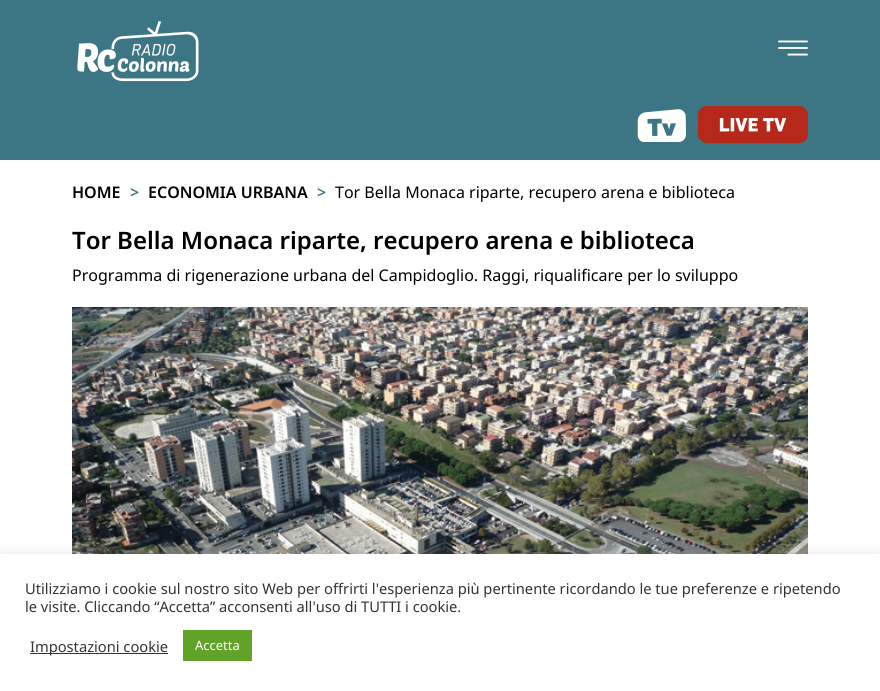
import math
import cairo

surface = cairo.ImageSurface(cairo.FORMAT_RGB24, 880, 691)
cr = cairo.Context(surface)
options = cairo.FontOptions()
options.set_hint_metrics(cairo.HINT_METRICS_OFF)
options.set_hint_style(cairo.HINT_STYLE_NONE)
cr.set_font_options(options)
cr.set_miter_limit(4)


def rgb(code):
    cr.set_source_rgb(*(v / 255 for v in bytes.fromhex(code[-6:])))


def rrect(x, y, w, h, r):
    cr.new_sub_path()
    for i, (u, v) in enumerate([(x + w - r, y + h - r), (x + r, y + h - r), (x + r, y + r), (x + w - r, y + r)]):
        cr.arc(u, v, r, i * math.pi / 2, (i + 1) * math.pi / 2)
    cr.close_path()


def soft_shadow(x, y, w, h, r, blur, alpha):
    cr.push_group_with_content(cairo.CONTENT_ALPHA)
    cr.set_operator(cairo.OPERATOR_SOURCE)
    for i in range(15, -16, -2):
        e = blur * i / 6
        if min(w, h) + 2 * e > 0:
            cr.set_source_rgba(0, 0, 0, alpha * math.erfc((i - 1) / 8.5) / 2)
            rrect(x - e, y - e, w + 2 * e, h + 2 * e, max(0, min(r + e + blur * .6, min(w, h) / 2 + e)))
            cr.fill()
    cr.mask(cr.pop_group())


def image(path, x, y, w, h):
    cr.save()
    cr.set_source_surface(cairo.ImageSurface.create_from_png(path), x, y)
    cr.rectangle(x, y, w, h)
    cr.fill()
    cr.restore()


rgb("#ffffff")
cr.paint()
rgb("#3c7584")
cr.rectangle(0, 0, 880, 160)
cr.fill()
image("img/1.png", 77, 21, 122, 61)
image("img/2.png", 778, 40, 30, 16)
image("img/3.png", 637, 109, 49, 33)
image("img/4.png", 698, 106, 110, 37)
image("img/5.png", 72, 307, 736, 247)
rgb("#acabab")
soft_shadow(0, 553, 880, 137, 0, 5, 0.3)
for x, y, w, h, color in [
    (0, 554, 880, 137, "#ffffff"),
    (30, 653, 138, 1, "#333333"),
    (183, 630, 69, 31, "#61a229"),
]:
    rgb(color)
    cr.rectangle(x, y, w, h)
    cr.fill()
cr.select_font_face("Noto Sans SemiBold")
cr.set_font_size(16)
rgb("#000000")
cr.move_to(72, 198)
cr.show_text("HOME")
rgb("#3c7584")
cr.move_to(130, 198)
cr.show_text(">")
rgb("#000000")
cr.move_to(148, 198)
cr.show_text("ECONOMIA URBANA")
rgb("#3c7584")
cr.move_to(317, 198)
cr.show_text(">")
cr.select_font_face("Noto Sans")
rgb("#000000")
cr.move_to(335, 198)
cr.show_text("Tor Bella Monaca riparte, recupero arena e biblioteca")
cr.select_font_face("Noto Sans SemiBold")
cr.set_font_size(24)
cr.move_to(72, 249)
cr.show_text("Tor Bella Monaca riparte, recupero arena e biblioteca")
cr.select_font_face("Noto Sans")
cr.set_font_size(16)
cr.move_to(72, 281)
cr.show_text("Programma di rigenerazione urbana del Campidoglio. Raggi, riqualificare per lo sviluppo")
cr.set_font_size(14.67)
rgb("#333333")
for x, y, s in [
    (25, 594, "Utilizziamo i cookie sul nostro sito Web per offrirti l'esperienza più pertinente ricordando le tue preferenze e ripetendo"),
    (25, 612, "le visite. Cliccando “Accetta” acconsenti all'uso di TUTTI i cookie."),
    (30, 652, "Impostazioni cookie"),
]:
    cr.move_to(x, y)
    cr.show_text(s)
cr.set_font_size(13)
rgb("#ffffff")
cr.move_to(195, 650)
cr.show_text("Accetta")
surface.write_to_png("page.png")
